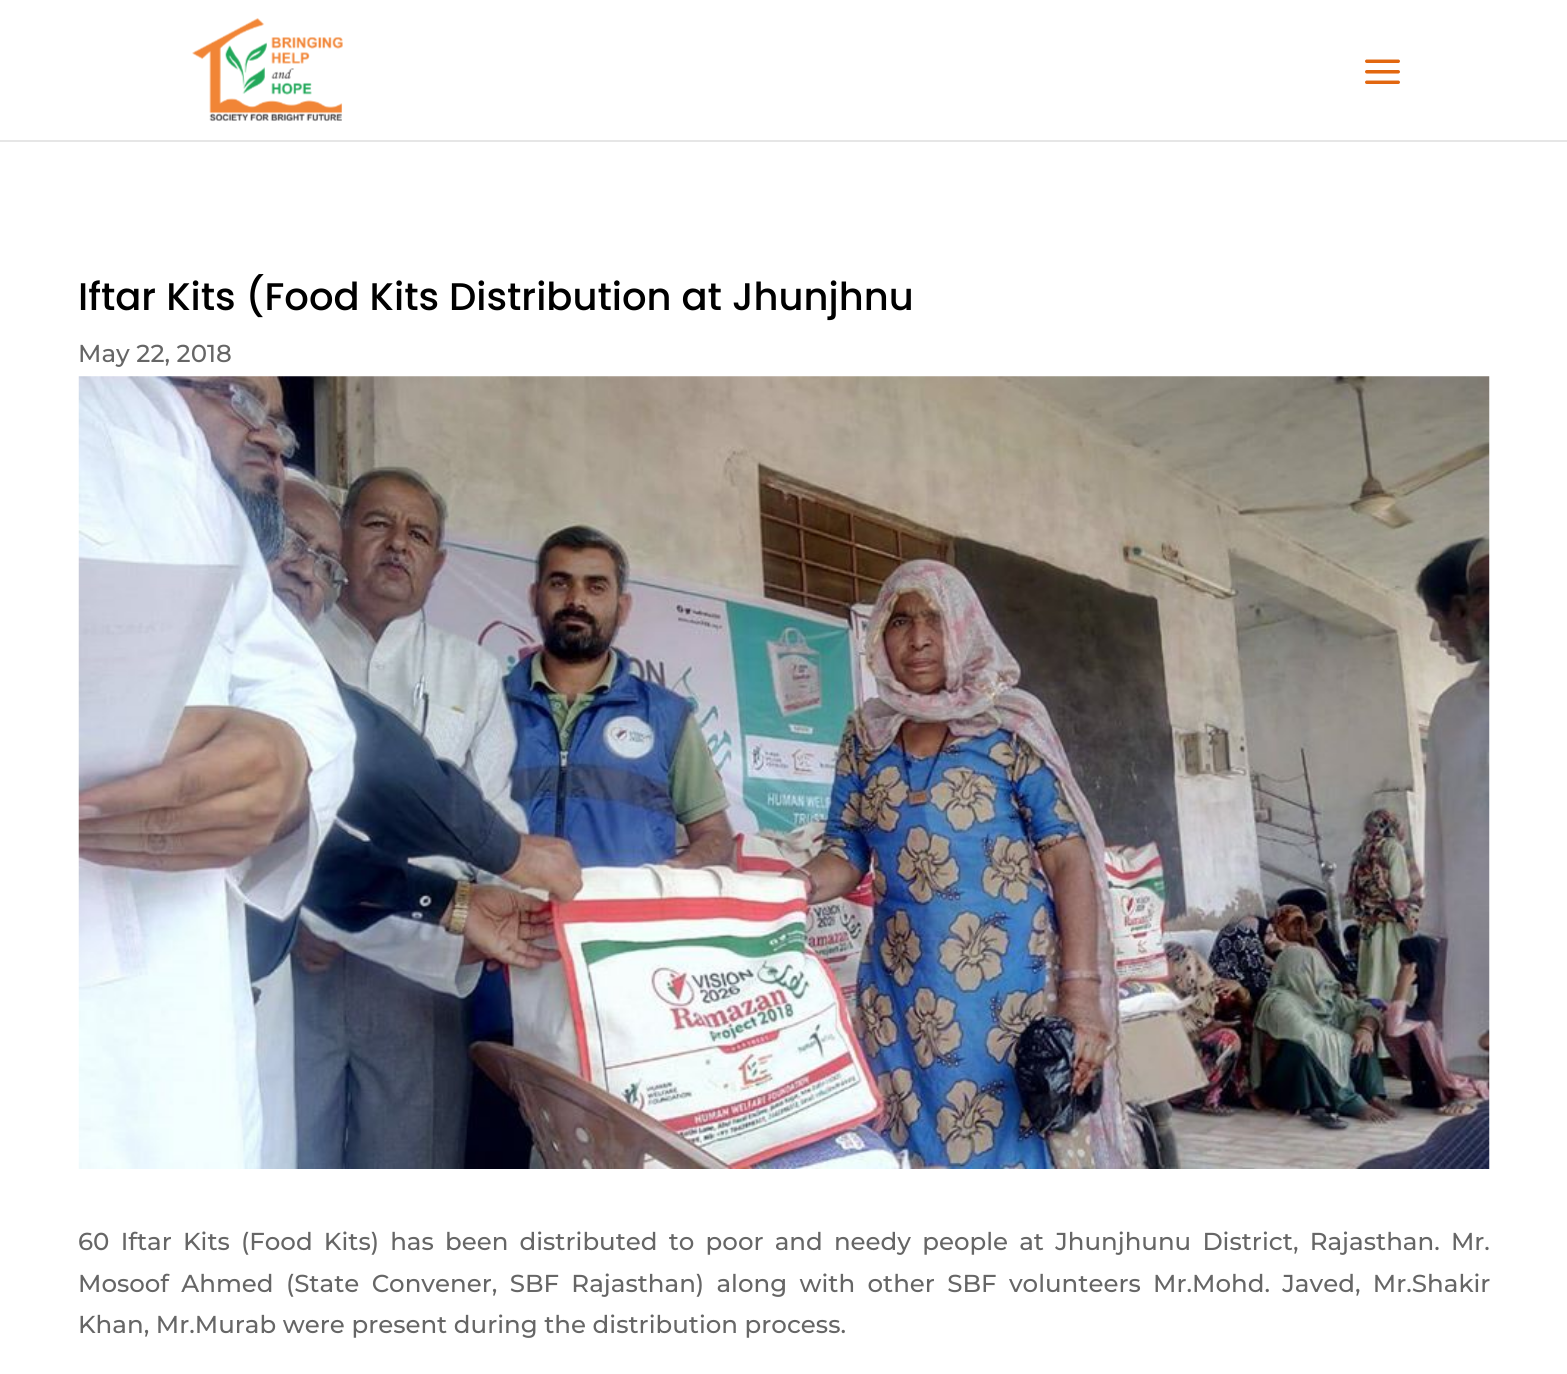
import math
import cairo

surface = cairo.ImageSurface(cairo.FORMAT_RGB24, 1567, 1374)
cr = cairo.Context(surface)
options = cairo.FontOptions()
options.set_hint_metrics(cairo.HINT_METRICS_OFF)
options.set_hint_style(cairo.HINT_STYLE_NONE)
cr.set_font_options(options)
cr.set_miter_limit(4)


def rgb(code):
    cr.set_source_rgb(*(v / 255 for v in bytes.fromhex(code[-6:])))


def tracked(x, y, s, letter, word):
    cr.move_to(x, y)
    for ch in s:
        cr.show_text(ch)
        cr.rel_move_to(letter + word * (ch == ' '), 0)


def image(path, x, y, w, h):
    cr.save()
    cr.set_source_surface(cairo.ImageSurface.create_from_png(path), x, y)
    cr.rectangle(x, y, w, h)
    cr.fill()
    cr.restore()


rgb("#ffffff")
cr.paint()
rgb("#e6e6e6")
cr.rectangle(0, 140, 1567, 2)
cr.fill()
image("img/1.png", 192, 18, 151, 104)
image("img/2.png", 1365, 59, 35, 25)
image("img/3.png", 78, 376, 1412, 793)
cr.select_font_face("Poppins Medium")
cr.set_font_size(38.5)
rgb("#000000")
cr.move_to(78, 310)
cr.show_text("Iftar Kits (Food Kits Distribution at Jhunjhnu")
cr.select_font_face("Montserrat Thin")
cr.set_font_size(24.5)
rgb("#666666")
cr.move_to(78, 362)
cr.show_text("May 22, 2018")
tracked(78, 1250, "60 Iftar Kits (Food Kits) has been distributed to poor and needy people at Jhunjhunu District, Rajasthan. Mr.", 0, 4.6)
tracked(78, 1292, "Mosoof Ahmed (State Convener, SBF Rajasthan) along with other SBF volunteers Mr.Mohd. Javed, Mr.Shakir", 0, 5.75)
cr.move_to(78, 1333)
cr.show_text("Khan, Mr.Murab were present during the distribution process.")
surface.write_to_png("page.png")
